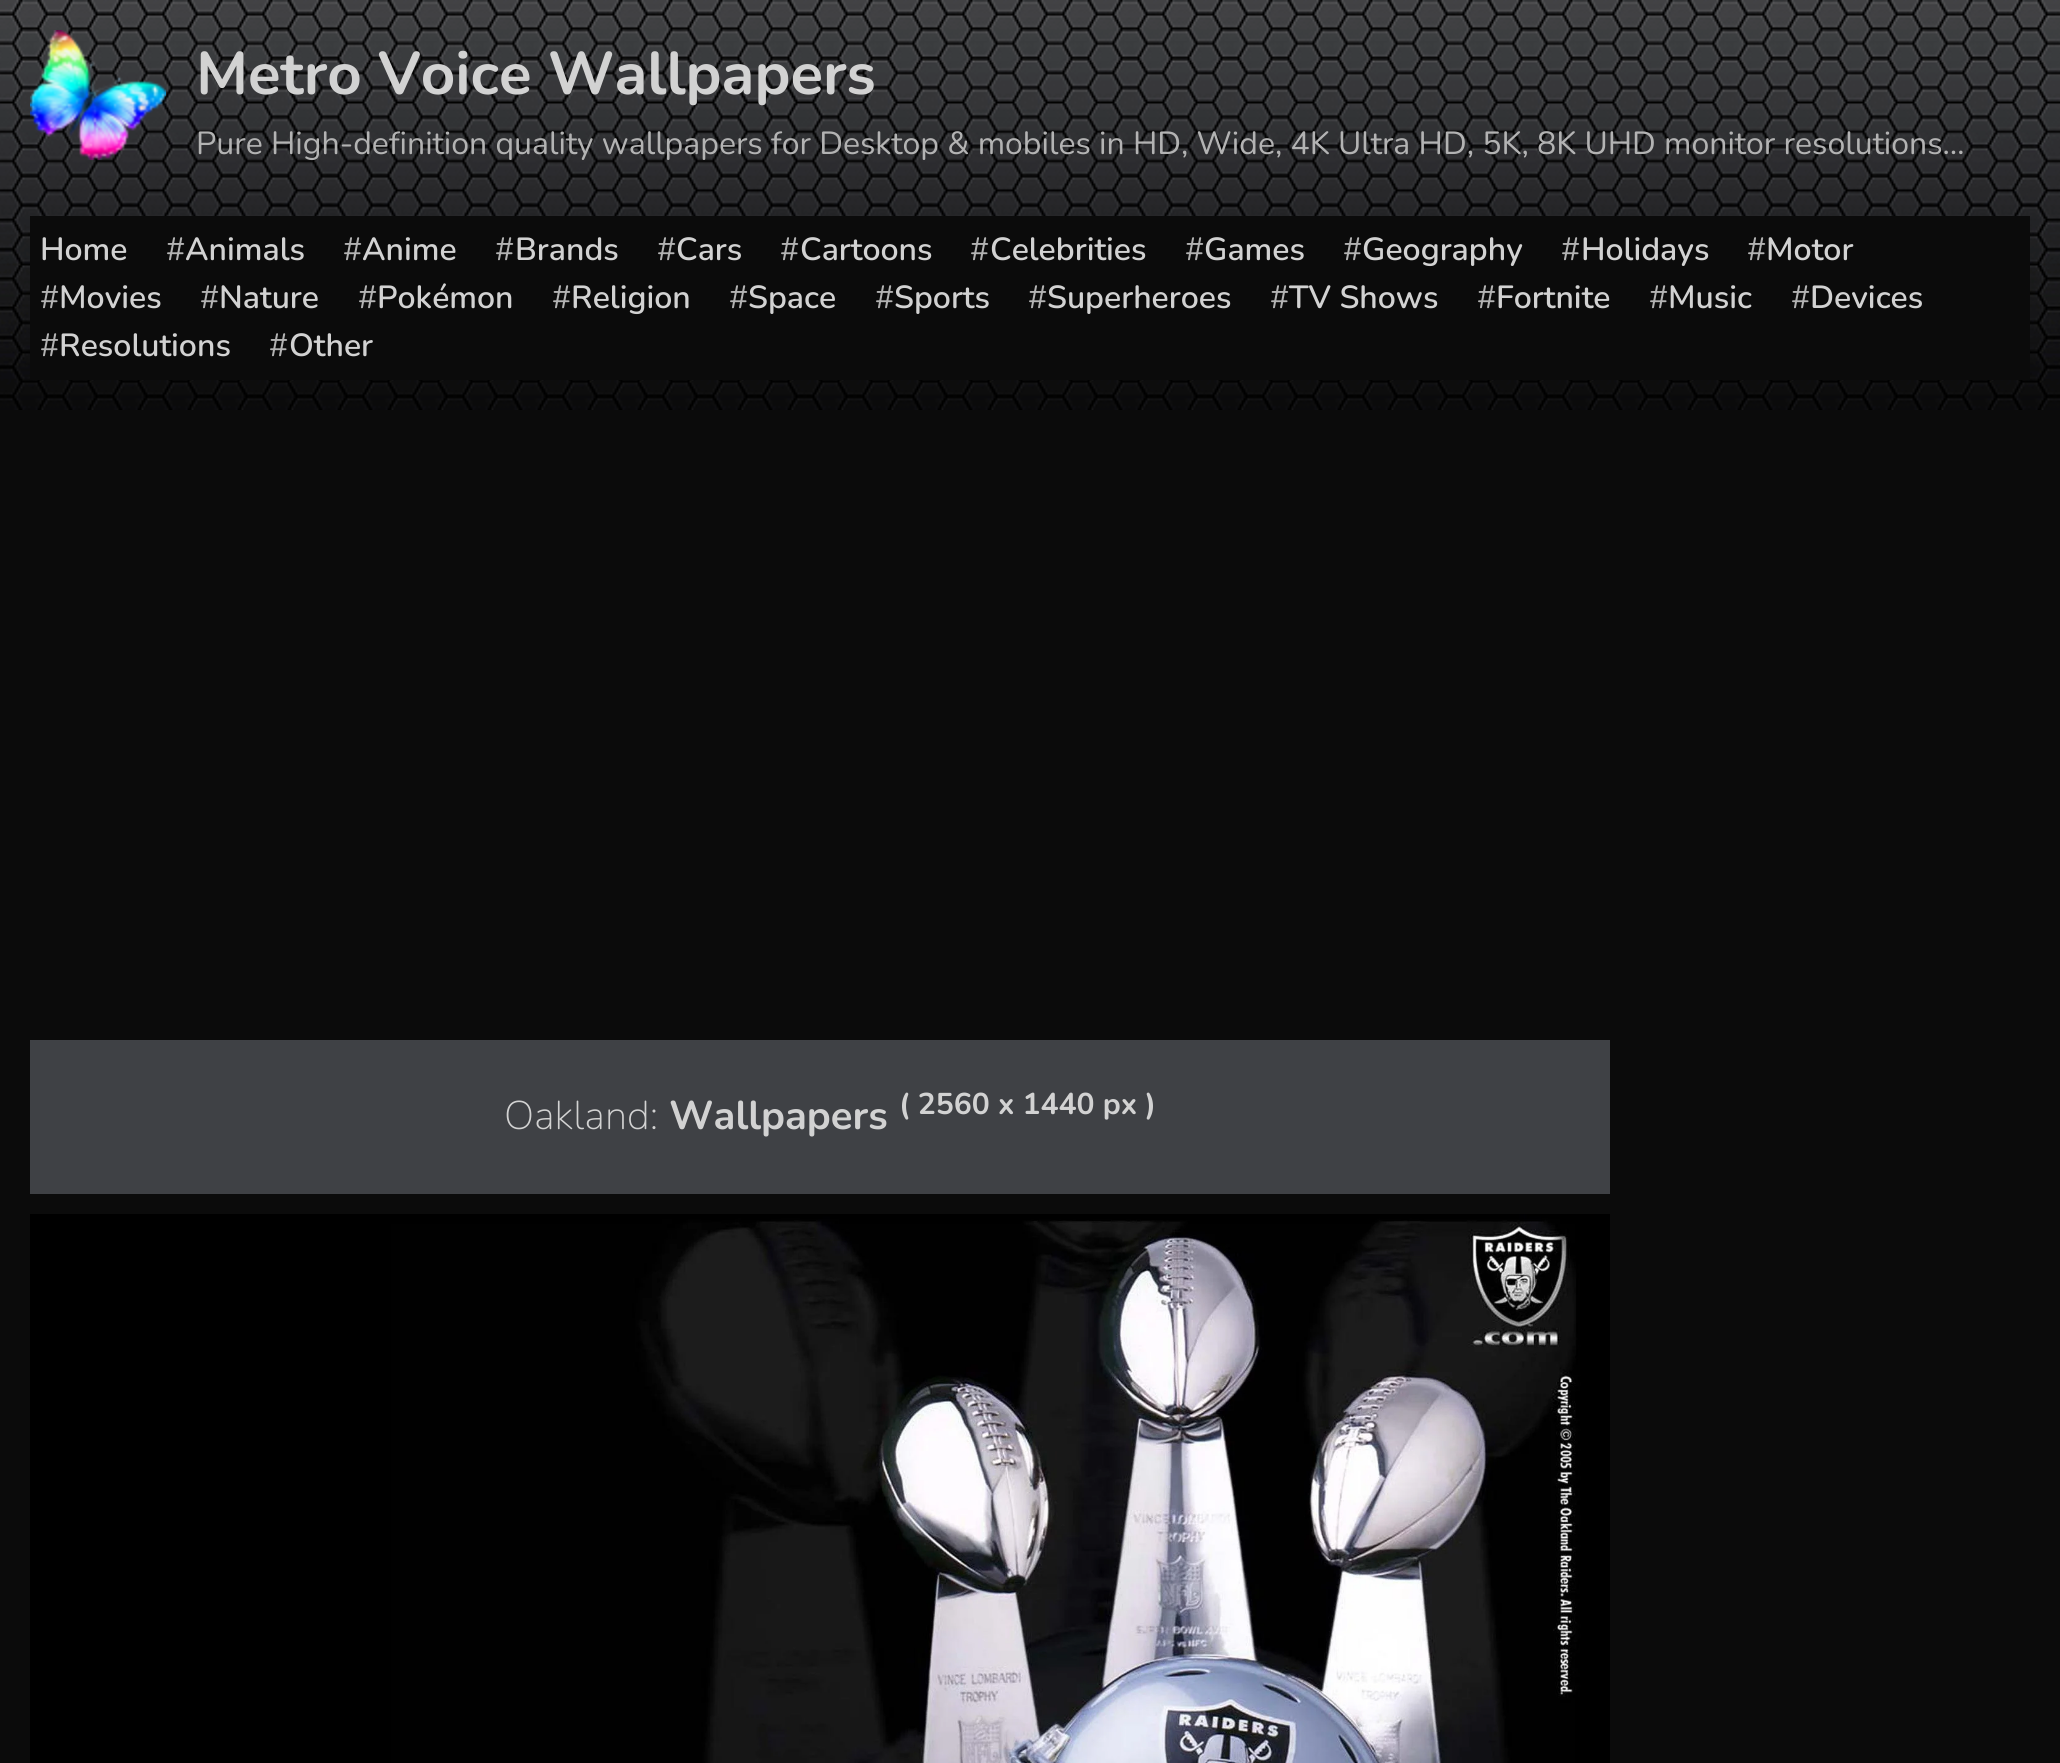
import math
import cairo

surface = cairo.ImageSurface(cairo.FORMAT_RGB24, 2060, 1763)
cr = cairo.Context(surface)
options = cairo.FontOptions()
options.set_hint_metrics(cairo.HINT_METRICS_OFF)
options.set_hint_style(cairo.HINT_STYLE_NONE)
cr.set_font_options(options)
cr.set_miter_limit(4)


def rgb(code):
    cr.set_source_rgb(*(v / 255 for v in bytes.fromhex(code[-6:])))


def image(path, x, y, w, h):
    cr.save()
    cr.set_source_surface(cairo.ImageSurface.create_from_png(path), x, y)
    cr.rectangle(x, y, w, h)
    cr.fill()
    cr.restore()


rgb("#0b0b0b")
cr.paint()
image("img/1.png", 0, 0, 2060, 410)
image("img/2.png", 30, 30, 136, 130)
rgb("#0b0b0b")
cr.rectangle(30, 216, 2000, 164)
cr.fill()
rgb("#3f4145")
cr.rectangle(30, 1040, 1580, 154)
cr.fill()
image("img/3.png", 30, 1214, 1580, 549)
cr.select_font_face("Nunito", cairo.FONT_SLANT_NORMAL, cairo.FONT_WEIGHT_BOLD)
cr.set_font_size(60)
rgb("#d2d2d2")
cr.move_to(196, 94)
cr.show_text("Metro Voice Wallpapers")
cr.select_font_face("Nunito")
cr.set_font_size(32)
rgb("#b3b3b3")
cr.move_to(196, 154)
cr.show_text("Pure High-definition quality wallpapers for Desktop & mobiles in HD, Wide, 4K Ultra HD, 5K, 8K UHD monitor resolutions…")
cr.select_font_face("Nunito SemiBold")
rgb("#d2d2d2")
cr.move_to(40, 260)
cr.show_text("Home")
cr.select_font_face("Nunito")
rgb("#b3b3b3")
cr.move_to(166, 260)
cr.show_text("#")
cr.select_font_face("Nunito SemiBold")
rgb("#d2d2d2")
cr.move_to(185, 260)
cr.show_text("Animals")
cr.select_font_face("Nunito")
rgb("#b3b3b3")
cr.move_to(343, 260)
cr.show_text("#")
cr.select_font_face("Nunito SemiBold")
rgb("#d2d2d2")
cr.move_to(362, 260)
cr.show_text("Anime")
cr.select_font_face("Nunito")
rgb("#b3b3b3")
cr.move_to(495, 260)
cr.show_text("#")
cr.select_font_face("Nunito SemiBold")
rgb("#d2d2d2")
cr.move_to(515, 260)
cr.show_text("Brands")
cr.select_font_face("Nunito")
rgb("#b3b3b3")
cr.move_to(657, 260)
cr.show_text("#")
cr.select_font_face("Nunito SemiBold")
rgb("#d2d2d2")
cr.move_to(676, 260)
cr.show_text("Cars")
cr.select_font_face("Nunito")
rgb("#b3b3b3")
cr.move_to(780, 260)
cr.show_text("#")
cr.select_font_face("Nunito SemiBold")
rgb("#d2d2d2")
cr.move_to(800, 260)
cr.show_text("Cartoons")
cr.select_font_face("Nunito")
rgb("#b3b3b3")
cr.move_to(970, 260)
cr.show_text("#")
cr.select_font_face("Nunito SemiBold")
rgb("#d2d2d2")
cr.move_to(990, 260)
cr.show_text("Celebrities")
cr.select_font_face("Nunito")
rgb("#b3b3b3")
cr.move_to(1185, 260)
cr.show_text("#")
cr.select_font_face("Nunito SemiBold")
rgb("#d2d2d2")
cr.move_to(1204, 260)
cr.show_text("Games")
cr.select_font_face("Nunito")
rgb("#b3b3b3")
cr.move_to(1343, 260)
cr.show_text("#")
cr.select_font_face("Nunito SemiBold")
rgb("#d2d2d2")
cr.move_to(1362, 260)
cr.show_text("Geography")
cr.select_font_face("Nunito")
rgb("#b3b3b3")
cr.move_to(1561, 260)
cr.show_text("#")
cr.select_font_face("Nunito SemiBold")
rgb("#d2d2d2")
cr.move_to(1581, 260)
cr.show_text("Holidays")
cr.select_font_face("Nunito")
rgb("#b3b3b3")
cr.move_to(1747, 260)
cr.show_text("#")
cr.select_font_face("Nunito SemiBold")
rgb("#d2d2d2")
cr.move_to(1766, 260)
cr.show_text("Motor")
cr.select_font_face("Nunito")
rgb("#b3b3b3")
cr.move_to(40, 308)
cr.show_text("#")
cr.select_font_face("Nunito SemiBold")
rgb("#d2d2d2")
cr.move_to(59, 308)
cr.show_text("Movies")
cr.select_font_face("Nunito")
rgb("#b3b3b3")
cr.move_to(200, 308)
cr.show_text("#")
cr.select_font_face("Nunito SemiBold")
rgb("#d2d2d2")
cr.move_to(219, 308)
cr.show_text("Nature")
cr.select_font_face("Nunito")
rgb("#b3b3b3")
cr.move_to(358, 308)
cr.show_text("#")
cr.select_font_face("Nunito SemiBold")
rgb("#d2d2d2")
cr.move_to(377, 308)
cr.show_text("Pokémon")
cr.select_font_face("Nunito")
rgb("#b3b3b3")
cr.move_to(552, 308)
cr.show_text("#")
cr.select_font_face("Nunito SemiBold")
rgb("#d2d2d2")
cr.move_to(571, 308)
cr.show_text("Religion")
cr.select_font_face("Nunito")
rgb("#b3b3b3")
cr.move_to(729, 308)
cr.show_text("#")
cr.select_font_face("Nunito SemiBold")
rgb("#d2d2d2")
cr.move_to(748, 308)
cr.show_text("Space")
cr.select_font_face("Nunito")
rgb("#b3b3b3")
cr.move_to(875, 308)
cr.show_text("#")
cr.select_font_face("Nunito SemiBold")
rgb("#d2d2d2")
cr.move_to(894, 308)
cr.show_text("Sports")
cr.select_font_face("Nunito")
rgb("#b3b3b3")
cr.move_to(1028, 308)
cr.show_text("#")
cr.select_font_face("Nunito SemiBold")
rgb("#d2d2d2")
cr.move_to(1047, 308)
cr.show_text("Superheroes")
cr.select_font_face("Nunito")
rgb("#b3b3b3")
cr.move_to(1270, 308)
cr.show_text("#")
cr.select_font_face("Nunito SemiBold")
rgb("#d2d2d2")
cr.move_to(1289, 308)
cr.show_text("TV Shows")
cr.select_font_face("Nunito")
rgb("#b3b3b3")
cr.move_to(1477, 308)
cr.show_text("#")
cr.select_font_face("Nunito SemiBold")
rgb("#d2d2d2")
cr.move_to(1496, 308)
cr.show_text("Fortnite")
cr.select_font_face("Nunito")
rgb("#b3b3b3")
cr.move_to(1649, 308)
cr.show_text("#")
cr.select_font_face("Nunito SemiBold")
rgb("#d2d2d2")
cr.move_to(1668, 308)
cr.show_text("Music")
cr.select_font_face("Nunito")
rgb("#b3b3b3")
cr.move_to(1791, 308)
cr.show_text("#")
cr.select_font_face("Nunito SemiBold")
rgb("#d2d2d2")
cr.move_to(1810, 308)
cr.show_text("Devices")
cr.select_font_face("Nunito")
rgb("#b3b3b3")
cr.move_to(40, 356)
cr.show_text("#")
cr.select_font_face("Nunito SemiBold")
rgb("#d2d2d2")
cr.move_to(59, 356)
cr.show_text("Resolutions")
cr.select_font_face("Nunito")
rgb("#b3b3b3")
cr.move_to(269, 356)
cr.show_text("#")
cr.select_font_face("Nunito SemiBold")
rgb("#d2d2d2")
cr.move_to(289, 356)
cr.show_text("Other")
cr.select_font_face("Nunito ExtraLight")
cr.set_font_size(40)
cr.move_to(504, 1129)
cr.show_text("Oakland:")
cr.select_font_face("Nunito", cairo.FONT_SLANT_NORMAL, cairo.FONT_WEIGHT_BOLD)
cr.move_to(669, 1129)
cr.show_text("Wallpapers")
cr.set_font_size(30)
cr.move_to(899, 1114)
cr.show_text("( 2560 x 1440 px )")
surface.write_to_png("page.png")
